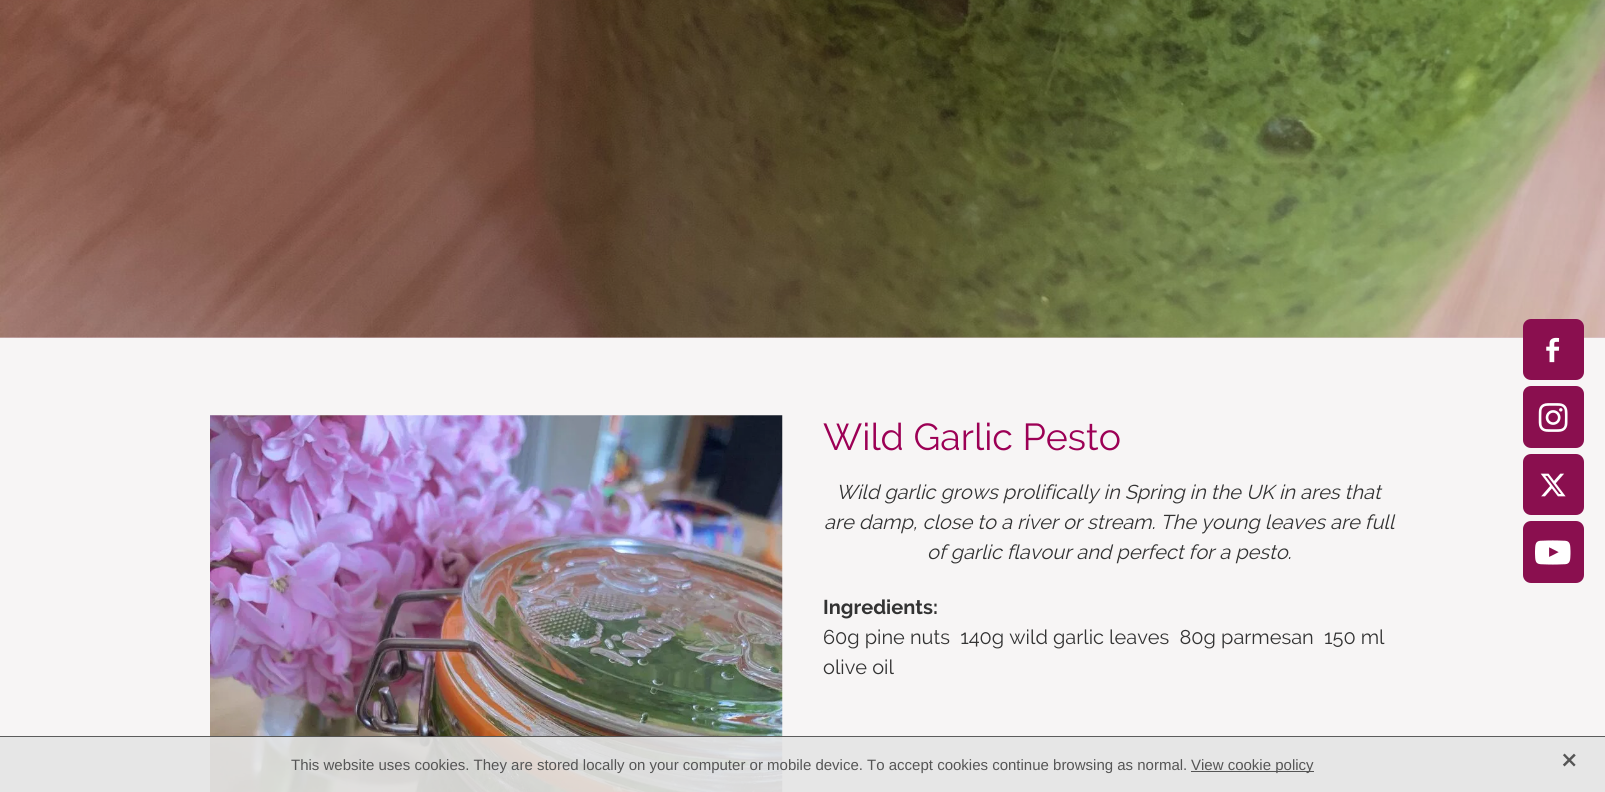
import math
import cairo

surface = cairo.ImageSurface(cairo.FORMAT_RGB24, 1605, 792)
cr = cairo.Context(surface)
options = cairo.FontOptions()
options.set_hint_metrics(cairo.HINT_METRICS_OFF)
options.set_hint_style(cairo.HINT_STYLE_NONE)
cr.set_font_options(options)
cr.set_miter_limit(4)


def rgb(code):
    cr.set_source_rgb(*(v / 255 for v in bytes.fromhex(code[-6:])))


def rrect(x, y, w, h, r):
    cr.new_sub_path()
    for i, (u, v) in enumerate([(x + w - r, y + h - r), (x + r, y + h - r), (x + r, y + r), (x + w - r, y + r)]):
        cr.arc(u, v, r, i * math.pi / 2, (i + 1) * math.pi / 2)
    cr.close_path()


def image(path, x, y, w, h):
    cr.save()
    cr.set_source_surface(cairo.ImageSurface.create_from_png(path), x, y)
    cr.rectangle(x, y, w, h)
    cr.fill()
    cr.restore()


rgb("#f7f5f5")
cr.paint()
rgb("#e3ccd7")
cr.rectangle(0, 337, 1605, 1)
cr.fill()
image("img/1.png", 0, 0, 1605, 338)
image("img/2.png", 210, 415, 573, 377)
rgb("#8a0f4f")
rrect(1523, 319, 61, 61, 8)
cr.fill()
image("img/3.png", 1546, 337, 14, 26)
rrect(1523, 386, 61, 62, 8)
cr.fill()
image("img/4.png", 1538, 403, 30, 29)
rrect(1523, 454, 61, 61, 8)
cr.fill()
image("img/5.png", 1540, 473, 26, 24)
rrect(1523, 521, 61, 62, 8)
cr.fill()
image("img/6.png", 1535, 540, 36, 25)
cr.set_source_rgba(0.898, 0.898, 0.898, 0.9)
cr.rectangle(0, 736, 1605, 56)
cr.fill()
cr.set_source_rgba(0, 0, 0, 0.6)
cr.rectangle(0, 736, 1605, 1)
cr.fill()
rgb("#555555")
cr.rectangle(1191, 771, 123, 1)
cr.fill()
image("img/7.png", 1562, 753, 14, 14)
cr.select_font_face("Raleway")
cr.set_font_size(37.5)
rgb("#9c0055")
cr.move_to(823, 450)
cr.show_text("Wild Garlic Pesto")
cr.select_font_face("Raleway", cairo.FONT_SLANT_ITALIC)
cr.set_font_size(20)
rgb("#333333")
for x, y, s in [
    (836, 499, "Wild garlic grows prolifically in Spring in the UK in ares that"),
    (824, 529, "are damp, close to a river or stream. The young leaves are full"),
    (927, 559, "of garlic flavour and perfect for a pesto."),
]:
    cr.move_to(x, y)
    cr.show_text(s)
cr.select_font_face("Raleway", cairo.FONT_SLANT_NORMAL, cairo.FONT_WEIGHT_BOLD)
cr.move_to(823, 614)
cr.show_text("Ingredients:")
cr.select_font_face("Raleway")
cr.move_to(823, 644)
cr.show_text("60g pine nuts  140g wild garlic leaves  80g parmesan  150 ml")
cr.move_to(823, 674)
cr.show_text("olive oil")
cr.select_font_face("Liberation Sans")
cr.set_font_size(15)
rgb("#555555")
cr.move_to(291, 770)
cr.show_text("This website uses cookies. They are stored locally on your computer or mobile device. To accept cookies continue browsing as normal.")
cr.move_to(1191, 770)
cr.show_text("View cookie policy")
surface.write_to_png("page.png")
